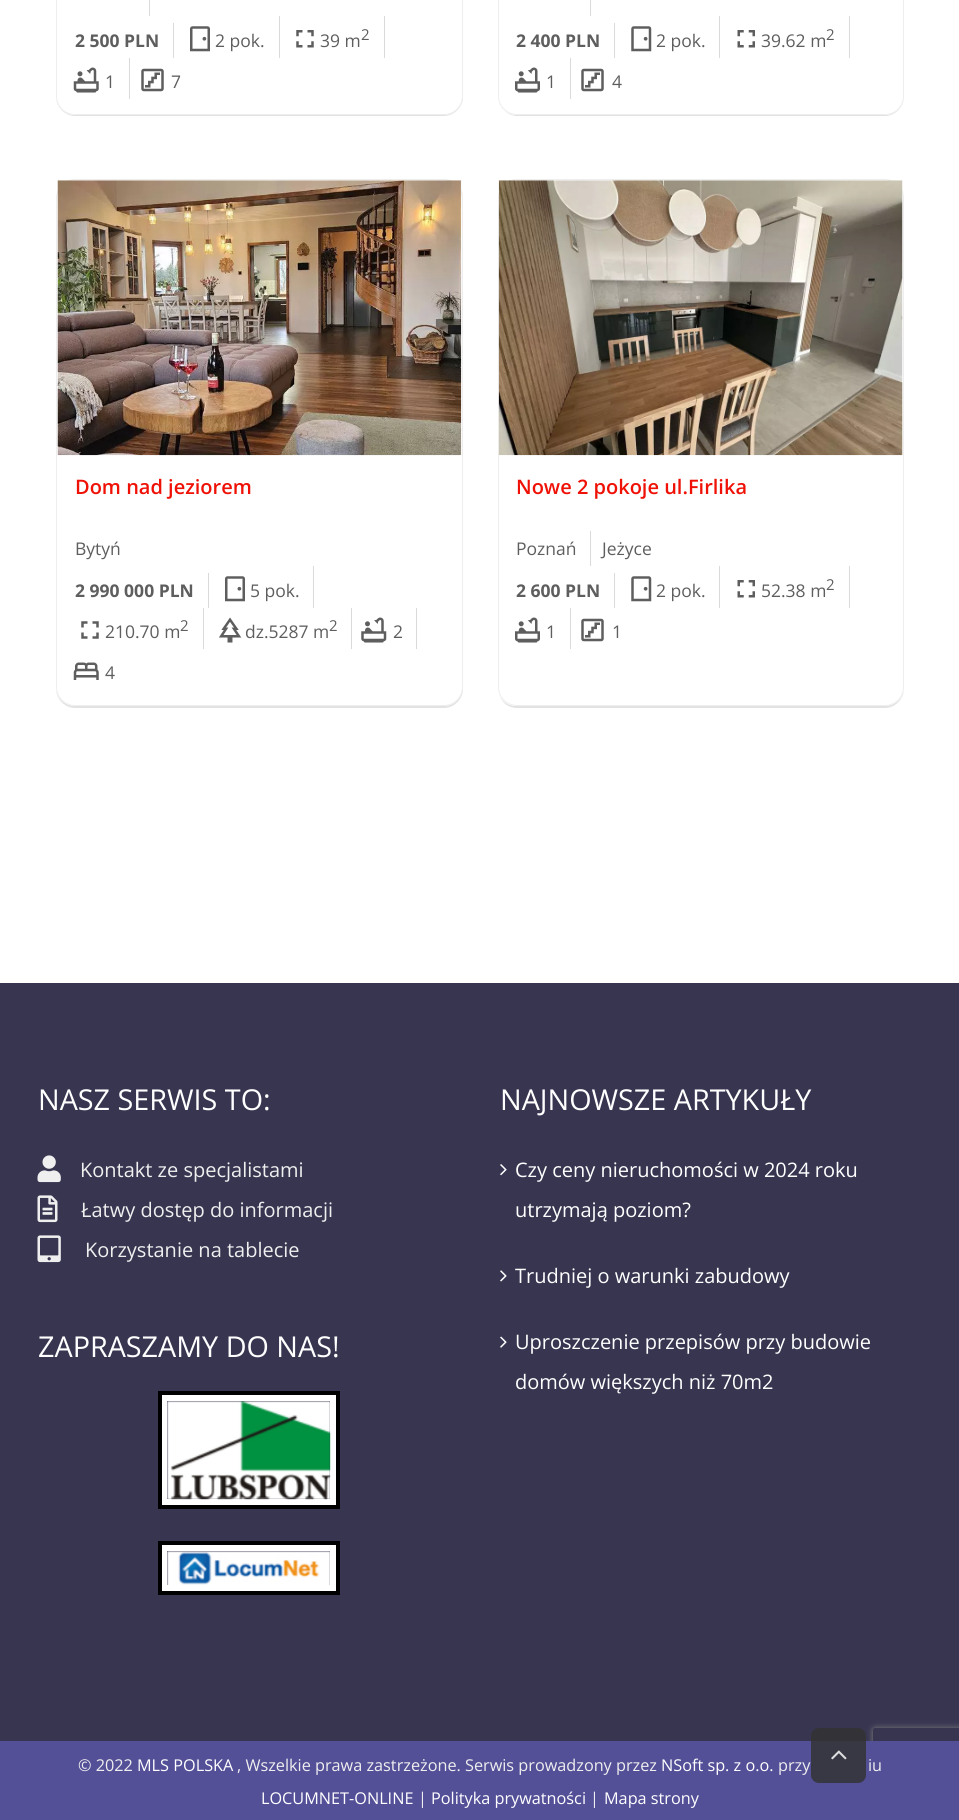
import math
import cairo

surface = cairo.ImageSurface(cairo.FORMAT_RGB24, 959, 1820)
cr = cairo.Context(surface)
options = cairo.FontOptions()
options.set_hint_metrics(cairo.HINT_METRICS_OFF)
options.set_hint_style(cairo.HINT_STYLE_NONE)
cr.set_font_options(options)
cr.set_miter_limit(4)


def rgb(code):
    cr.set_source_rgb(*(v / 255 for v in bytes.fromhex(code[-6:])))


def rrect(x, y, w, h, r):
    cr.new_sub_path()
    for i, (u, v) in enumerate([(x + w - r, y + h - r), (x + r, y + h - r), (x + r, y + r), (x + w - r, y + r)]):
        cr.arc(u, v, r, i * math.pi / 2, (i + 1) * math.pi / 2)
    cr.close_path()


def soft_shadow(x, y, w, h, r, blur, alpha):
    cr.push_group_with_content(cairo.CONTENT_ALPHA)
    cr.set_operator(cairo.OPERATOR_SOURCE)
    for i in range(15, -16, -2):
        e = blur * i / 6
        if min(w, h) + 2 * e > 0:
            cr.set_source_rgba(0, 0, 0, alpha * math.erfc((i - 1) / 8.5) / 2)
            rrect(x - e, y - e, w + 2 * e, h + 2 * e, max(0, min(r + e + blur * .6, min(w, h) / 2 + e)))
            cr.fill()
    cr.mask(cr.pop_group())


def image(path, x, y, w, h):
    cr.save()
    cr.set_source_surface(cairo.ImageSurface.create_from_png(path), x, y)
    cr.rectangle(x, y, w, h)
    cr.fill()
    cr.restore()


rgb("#ffffff")
cr.paint()
rgb("#e2e2e2")
cr.new_path()
cr.move_to(56, -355)
cr.line_to(56, -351)
cr.line_to(56, 97)
cr.curve_to(56, 107, 65, 116, 75, 116)
cr.line_to(444, 116)
cr.curve_to(454, 116, 463, 107, 463, 97)
cr.line_to(463, -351)
cr.curve_to(463, -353, 463, -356, 462, -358)
cr.line_to(462, -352)
cr.line_to(462, 96)
cr.curve_to(462, 107, 454, 115, 444, 115)
cr.line_to(75, 115)
cr.curve_to(65, 115, 56, 107, 56, 96)
cr.close_path()
cr.fill()
rgb("#ffffff")
rrect(56.5, -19.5, 406, 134, 18.5)
cr.fill_preserve()
rgb("#eeeeee")
cr.set_line_width(1)
cr.stroke()
for x, y, w, h, color in [
    (149, 0, 1, 16, "#dadada"),
    (173, 23, 1, 35, "#dadada"),
    (279, 16, 1, 42, "#dadada"),
]:
    rgb(color)
    cr.rectangle(x, y, w, h)
    cr.fill()
image("img/1.png", 190, 26, 20, 26)
cr.rectangle(384, 16, 1, 42)
cr.fill()
image("img/2.png", 296, 30, 18, 18)
cr.rectangle(129, 58, 1, 41)
cr.fill()
image("img/3.png", 73, 67, 26, 26)
image("img/4.png", 141, 68, 23, 24)
rgb("#e2e2e2")
cr.new_path()
cr.move_to(501, 106)
cr.curve_to(504, 112, 510, 116, 517, 116)
cr.line_to(885, 116)
cr.curve_to(895, 116, 904, 107, 904, 97)
cr.line_to(904, -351)
cr.line_to(904, -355)
cr.line_to(904, 96)
cr.curve_to(904, 107, 895, 115, 885, 115)
cr.line_to(516, 115)
cr.curve_to(510, 115, 504, 112, 501, 106)
cr.close_path()
cr.fill()
rgb("#ffffff")
rrect(498.5, -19.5, 405, 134, 18.5)
cr.fill_preserve()
rgb("#eeeeee")
cr.stroke()
for x, y, w, h, color in [
    (590, 0, 1, 16, "#dadada"),
    (614, 23, 1, 35, "#dadada"),
    (719, 16, 1, 42, "#dadada"),
]:
    rgb(color)
    cr.rectangle(x, y, w, h)
    cr.fill()
image("img/5.png", 631, 26, 21, 26)
cr.rectangle(849, 16, 1, 42)
cr.fill()
image("img/6.png", 737, 30, 18, 18)
cr.rectangle(570, 58, 1, 41)
cr.fill()
image("img/7.png", 515, 67, 25, 26)
image("img/4.png", 581, 68, 23, 24)
rgb("#e2e2e2")
cr.new_path()
cr.move_to(56, 195)
cr.line_to(56, 199)
cr.line_to(56, 689)
cr.curve_to(56, 699, 65, 708, 75, 708)
cr.line_to(444, 708)
cr.curve_to(454, 708, 463, 699, 463, 689)
cr.line_to(463, 199)
cr.curve_to(463, 197, 463, 194, 462, 192)
cr.line_to(462, 198)
cr.line_to(462, 688)
cr.curve_to(462, 698, 454, 706, 444, 706)
cr.line_to(75, 706)
cr.curve_to(65, 706, 56, 698, 56, 688)
cr.close_path()
cr.fill()
rgb("#ffffff")
rrect(56.5, 179.5, 406, 526, 18.5)
cr.fill_preserve()
rgb("#eeeeee")
cr.stroke()
image("img/8.png", 57, 180, 405, 276)
rgb("#dadada")
cr.rectangle(208, 573, 1, 35)
cr.fill()
cr.rectangle(313, 566, 1, 42)
cr.fill()
image("img/1.png", 225, 576, 20, 26)
cr.rectangle(203, 608, 1, 41)
cr.fill()
image("img/9.png", 81, 621, 18, 18)
cr.rectangle(351, 608, 1, 41)
cr.fill()
image("img/10.png", 219, 617, 23, 26)
cr.rectangle(416, 608, 1, 41)
cr.fill()
image("img/11.png", 361, 617, 26, 26)
image("img/12.png", 73, 662, 26, 18)
rgb("#e2e2e2")
cr.new_path()
cr.move_to(499, 694)
cr.curve_to(501, 702, 508, 708, 517, 708)
cr.line_to(885, 708)
cr.curve_to(895, 708, 904, 699, 904, 689)
cr.line_to(904, 199)
cr.line_to(904, 195)
cr.line_to(904, 688)
cr.curve_to(904, 698, 895, 706, 885, 706)
cr.line_to(516, 706)
cr.curve_to(508, 706, 501, 701, 499, 694)
cr.close_path()
cr.fill()
rgb("#ffffff")
rrect(498.5, 179.5, 405, 526, 18.5)
cr.fill_preserve()
rgb("#eeeeee")
cr.stroke()
image("img/13.png", 498, 180, 405, 276)
for x, y, w, h, color in [
    (590, 531, 1, 35, "#dadada"),
    (614, 573, 1, 35, "#dadada"),
    (719, 566, 1, 42, "#dadada"),
]:
    rgb(color)
    cr.rectangle(x, y, w, h)
    cr.fill()
image("img/5.png", 631, 576, 21, 26)
cr.rectangle(849, 566, 1, 42)
cr.fill()
image("img/6.png", 737, 580, 18, 18)
cr.rectangle(570, 608, 1, 41)
cr.fill()
image("img/7.png", 515, 617, 25, 26)
image("img/4.png", 581, 618, 23, 24)
rgb("#373550")
cr.rectangle(0, 983, 959, 758)
cr.fill()
image("img/14.png", 37, 1155, 24, 28)
image("img/15.png", 37, 1195, 21, 28)
image("img/16.png", 37, 1235, 24, 28)
cr.rectangle(164, 1398, 169, 104)
rgb("#ffffff")
cr.set_line_width(6)
cr.stroke()
image("img/17.png", 167, 1401, 164, 99)
cr.rectangle(160, 1393, 178, 114)
rgb("#000000")
cr.set_line_width(4)
cr.stroke()
cr.rectangle(164, 1548, 169, 40)
rgb("#ffffff")
cr.set_line_width(6)
cr.stroke()
image("img/18.png", 167, 1551, 163, 34)
cr.rectangle(160, 1543, 178, 50)
rgb("#000000")
cr.set_line_width(4)
cr.stroke()
image("img/19.png", 500, 1164, 7, 12)
image("img/20.png", 500, 1270, 7, 12)
image("img/21.png", 500, 1336, 7, 12)
cr.save()
cr.set_fill_rule(cairo.FILL_RULE_EVEN_ODD)
cr.new_path()
cr.move_to(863, 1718)
cr.line_to(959, 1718)
cr.line_to(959, 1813)
cr.line_to(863, 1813)
cr.close_path()
cr.move_to(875.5, 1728)
cr.line_to(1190.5, 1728)
cr.curve_to(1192, 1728, 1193, 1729, 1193, 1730.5)
cr.line_to(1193, 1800.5)
cr.curve_to(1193, 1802, 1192, 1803, 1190.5, 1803)
cr.line_to(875.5, 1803)
cr.curve_to(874, 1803, 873, 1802, 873, 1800.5)
cr.line_to(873, 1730.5)
cr.curve_to(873, 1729, 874, 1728, 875.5, 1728)
cr.close_path()
cr.clip()
rgb("#808080")
soft_shadow(873, 1728, 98, 75, 2.5, 3, 1)
cr.restore()
rgb("#545098")
cr.rectangle(0, 1741, 959, 79)
cr.fill()
cr.set_source_rgba(0.2, 0.2, 0.2, 0.83)
rrect(811, 1728, 55, 55, 8)
cr.fill()
image("img/22.png", 831, 1750, 16, 10)
cr.select_font_face("Open Sans", cairo.FONT_SLANT_NORMAL, cairo.FONT_WEIGHT_BOLD)
cr.set_font_size(17.5)
rgb("#5e5e5e")
cr.move_to(75, 47)
cr.show_text("2 500 PLN")
cr.select_font_face("Open Sans")
cr.move_to(215, 47)
cr.show_text("2 pok.")
cr.move_to(320, 47)
cr.show_text("39 m")
cr.set_font_size(15)
cr.move_to(361, 40)
cr.show_text("2")
cr.set_font_size(17.5)
cr.move_to(105, 88)
cr.show_text("1")
cr.move_to(171, 88)
cr.show_text("7")
cr.select_font_face("Open Sans", cairo.FONT_SLANT_NORMAL, cairo.FONT_WEIGHT_BOLD)
cr.move_to(516, 47)
cr.show_text("2 400 PLN")
cr.select_font_face("Open Sans")
cr.move_to(656, 47)
cr.show_text("2 pok.")
cr.move_to(761, 47)
cr.show_text("39.62 m")
cr.set_font_size(15)
cr.move_to(826, 40)
cr.show_text("2")
cr.set_font_size(17.5)
cr.move_to(546, 88)
cr.show_text("1")
cr.move_to(612, 88)
cr.show_text("4")
cr.select_font_face("Open Sans SemiBold")
cr.set_font_size(20)
rgb("#ef1106")
cr.move_to(75, 494)
cr.show_text("Dom nad jeziorem")
cr.select_font_face("Open Sans")
cr.set_font_size(17.5)
rgb("#5e5e5e")
cr.move_to(75, 555)
cr.show_text("Bytyń")
cr.select_font_face("Open Sans", cairo.FONT_SLANT_NORMAL, cairo.FONT_WEIGHT_BOLD)
cr.move_to(75, 597)
cr.show_text("2 990 000 PLN")
cr.select_font_face("Open Sans")
cr.move_to(250, 597)
cr.show_text("5 pok.")
cr.move_to(105, 638)
cr.show_text("210.70 m")
cr.set_font_size(15)
cr.move_to(180, 631)
cr.show_text("2")
cr.set_font_size(17.5)
cr.move_to(245, 638)
cr.show_text("dz.5287 m")
cr.set_font_size(15)
cr.move_to(329, 631)
cr.show_text("2")
cr.set_font_size(17.5)
cr.move_to(393, 638)
cr.show_text("2")
cr.move_to(105, 679)
cr.show_text("4")
cr.select_font_face("Open Sans SemiBold")
cr.set_font_size(20)
rgb("#ef1106")
cr.move_to(516, 494)
cr.show_text("Nowe 2 pokoje ul.Firlika")
cr.select_font_face("Open Sans")
cr.set_font_size(17.5)
rgb("#5e5e5e")
cr.move_to(516, 555)
cr.show_text("Poznań")
cr.move_to(602, 555)
cr.show_text("Jeżyce")
cr.select_font_face("Open Sans", cairo.FONT_SLANT_NORMAL, cairo.FONT_WEIGHT_BOLD)
cr.move_to(516, 597)
cr.show_text("2 600 PLN")
cr.select_font_face("Open Sans")
cr.move_to(656, 597)
cr.show_text("2 pok.")
cr.move_to(761, 597)
cr.show_text("52.38 m")
cr.set_font_size(15)
cr.move_to(826, 590)
cr.show_text("2")
cr.set_font_size(17.5)
cr.move_to(546, 638)
cr.show_text("1")
cr.move_to(612, 638)
cr.show_text("1")
cr.set_font_size(28.75)
rgb("#ffffff")
cr.move_to(38, 1110)
cr.show_text("NASZ SERWIS TO:")
cr.set_font_size(20)
rgb("#efefef")
for x, y, s in [
    (80, 1177, "Kontakt ze specjalistami"),
    (81, 1217, "Łatwy dostęp do informacji"),
    (85, 1257, "Korzystanie na tablecie"),
]:
    cr.move_to(x, y)
    cr.show_text(s)
cr.set_font_size(28.75)
rgb("#ffffff")
cr.move_to(38, 1357)
cr.show_text("ZAPRASZAMY DO NAS!")
cr.move_to(500, 1110)
cr.show_text("NAJNOWSZE ARTYKUŁY")
cr.set_font_size(20)
for x, y, s in [
    (515, 1177, "Czy ceny nieruchomości w 2024 roku"),
    (515, 1217, "utrzymają poziom?"),
    (515, 1283, "Trudniej o warunki zabudowy"),
    (515, 1349, "Uproszczenie przepisów przy budowie"),
    (515, 1389, "domów większych niż 70m2"),
]:
    cr.move_to(x, y)
    cr.show_text(s)
cr.set_font_size(16.25)
rgb("#efefef")
cr.move_to(78, 1771)
cr.show_text("© 2022")
rgb("#ffffff")
cr.move_to(137, 1771)
cr.show_text("MLS POLSKA")
rgb("#efefef")
cr.move_to(237, 1771)
cr.show_text(", Wszelkie prawa zastrzeżone. Serwis prowadzony przez")
rgb("#ffffff")
cr.move_to(661, 1771)
cr.show_text("NSoft sp. z o.o.")
rgb("#efefef")
cr.move_to(778, 1771)
cr.show_text("przy")
cr.move_to(868, 1771)
cr.show_text("iu")
rgb("#ffffff")
cr.move_to(261, 1804)
cr.show_text("LOCUMNET-ONLINE")
rgb("#efefef")
cr.move_to(418, 1804)
cr.show_text("|")
rgb("#ffffff")
cr.move_to(431, 1804)
cr.show_text("Polityka prywatności")
rgb("#efefef")
cr.move_to(590, 1804)
cr.show_text("|")
rgb("#ffffff")
cr.move_to(604, 1804)
cr.show_text("Mapa strony")
surface.write_to_png("page.png")
